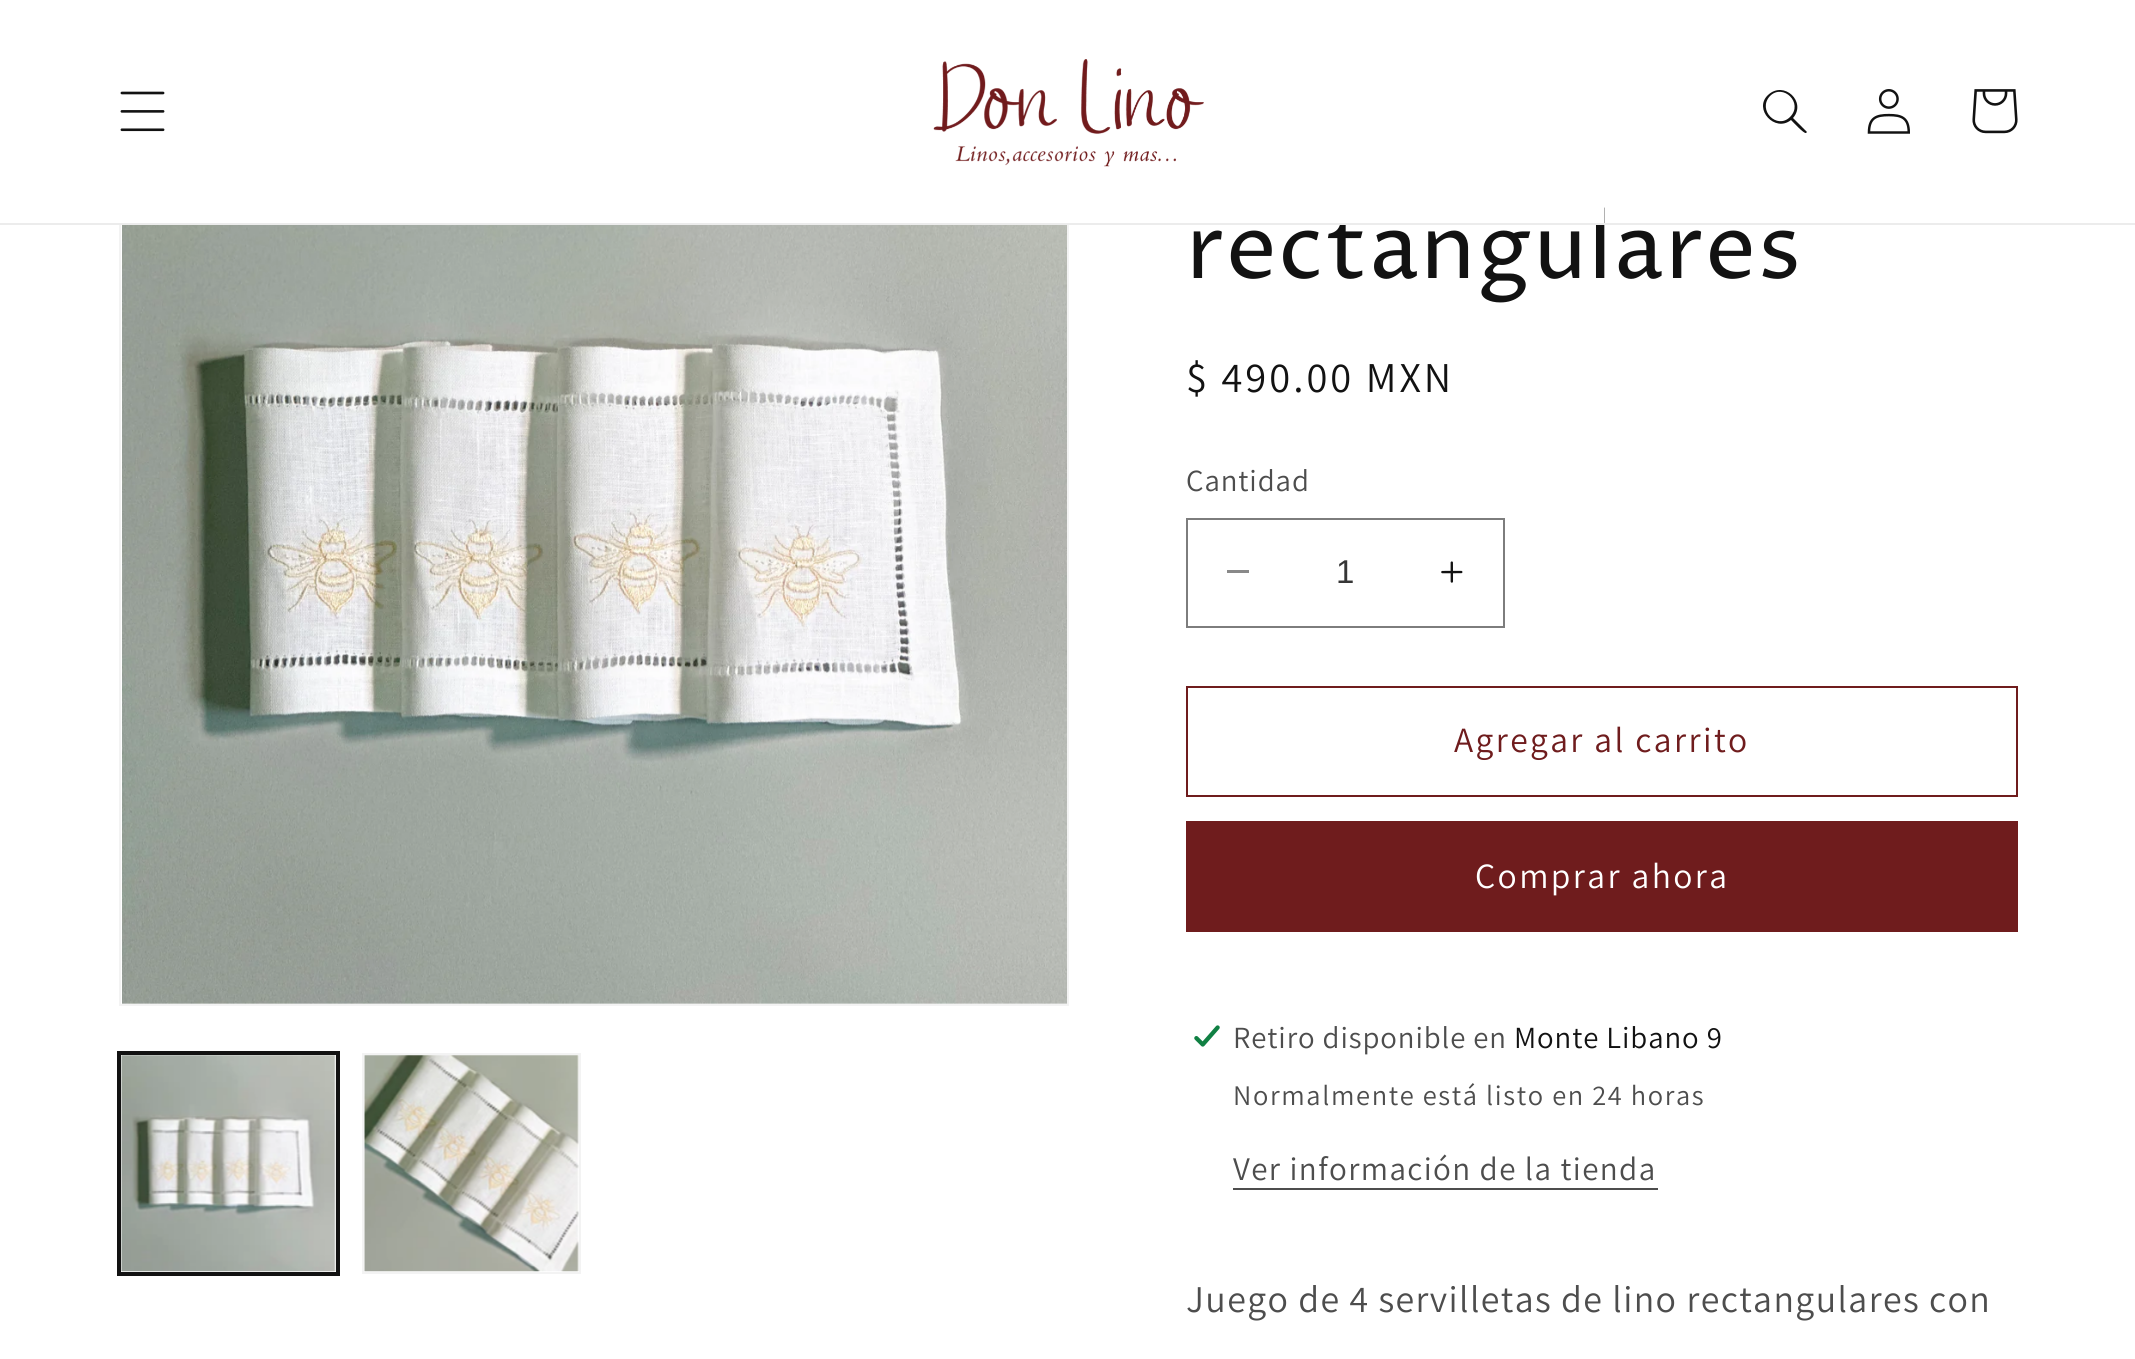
import math
import cairo

surface = cairo.ImageSurface(cairo.FORMAT_RGB24, 2135, 1359)
cr = cairo.Context(surface)
options = cairo.FontOptions()
options.set_hint_metrics(cairo.HINT_METRICS_OFF)
options.set_hint_style(cairo.HINT_STYLE_NONE)
cr.set_font_options(options)
cr.set_miter_limit(4)


def rgb(code):
    cr.set_source_rgb(*(v / 255 for v in bytes.fromhex(code[-6:])))


def tracked(x, y, s, letter, word):
    cr.move_to(x, y)
    for ch in s:
        cr.show_text(ch)
        cr.rel_move_to(letter + word * (ch == ' '), 0)


def image(path, x, y, w, h):
    cr.save()
    cr.set_source_surface(cairo.ImageSurface.create_from_png(path), x, y)
    cr.rectangle(x, y, w, h)
    cr.fill()
    cr.restore()


rgb("#ffffff")
cr.paint()
rgb("#121212")
cr.set_fill_rule(cairo.FILL_RULE_EVEN_ODD)
cr.new_path()
cr.move_to(1790, 117)
cr.curve_to(1777, 130, 1757, 110, 1770, 96)
cr.curve_to(1783, 83, 1804, 103, 1790, 117)
cr.close_path()
cr.move_to(1791, 120)
cr.curve_to(1775, 133, 1753, 109, 1768, 95)
cr.curve_to(1784, 80, 1807, 102, 1793, 118)
cr.line_to(1807, 132)
cr.line_to(1806, 133)
cr.curve_to(1804, 134, 1793, 122, 1791, 120)
cr.close_path()
cr.fill()
image("img/3.png", 1867, 89, 43, 45)
image("img/4.png", 1972, 89, 46, 45)
cr.rectangle(120, 73, 948, 932)
rgb("#f3f3f3")
cr.stroke()
image("img/5.png", 122, 225, 945, 779)
cr.rectangle(118, 1052, 221, 223)
rgb("#121212")
cr.stroke()
cr.rectangle(120, 1054, 217, 219)
cr.stroke()
image("img/6.png", 121, 1055, 215, 217)
cr.rectangle(363, 1054, 217, 219)
rgb("#f3f3f3")
cr.stroke()
image("img/7.png", 364, 1055, 215, 217)
rgb("#898989")
cr.rectangle(1227, 570, 22, 3)
cr.fill()
image("img/8.png", 1441, 561, 22, 22)
cr.rectangle(1187, 519, 317, 108)
rgb("#7d7d7d")
cr.stroke()
cr.rectangle(1187, 687, 830, 109)
rgb("#6f1c1d")
cr.stroke()
cr.rectangle(1186, 821, 832, 111)
cr.fill()
image("img/9.png", 1194, 1025, 26, 22)
rgb("#4d4d4d")
cr.rectangle(1233, 1188, 425, 2)
cr.fill()
cr.select_font_face("Proza Libre")
cr.set_font_size(90)
rgb("#121212")
tracked(1186, 278, "rectangulares", 1.4, 0)
rgb("#ffffff")
cr.rectangle(119, 72, 1485, 151)
cr.fill()
image("img/1.png", 120, 91, 45, 41)
image("img/2.png", 933, 59, 271, 108)
rgb("#ececec")
cr.rectangle(0, 223, 2135, 2)
cr.fill()
cr.select_font_face("Assistant")
cr.set_font_size(42.5)
rgb("#121212")
tracked(1186, 392, "$ 490.00 MXN", 3, 0)
cr.set_font_size(30.75)
rgb("#4d4d4d")
tracked(1186, 491, "Cantidad", 0.9, 0)
cr.select_font_face("Liberation Sans")
cr.set_font_size(33)
rgb("#363636")
cr.move_to(1336, 583)
cr.show_text("1")
cr.select_font_face("Assistant")
cr.set_font_size(35.5)
rgb("#6f1c1d")
tracked(1454, 752, "Agregar al carrito", 2.4, 0)
rgb("#ffffff")
tracked(1475, 888, "Comprar ahora", 2.4, 0)
cr.set_font_size(30.75)
rgb("#4d4d4d")
tracked(1233, 1048, "Retiro disponible en", 0.9, 0)
rgb("#121212")
tracked(1514, 1048, "Monte Libano 9", 0.9, 0)
cr.set_font_size(28.4)
rgb("#4d4d4d")
tracked(1233, 1105, "Normalmente está listo en 24 horas", 1.65, 0)
cr.set_font_size(33)
tracked(1233, 1180, "Ver información de la tienda", 1.4, 0)
cr.set_font_size(37.8)
tracked(1186, 1312, "Juego de 4 servilletas de lino rectangulares con", 1.4, 0)
surface.write_to_png("page.png")
